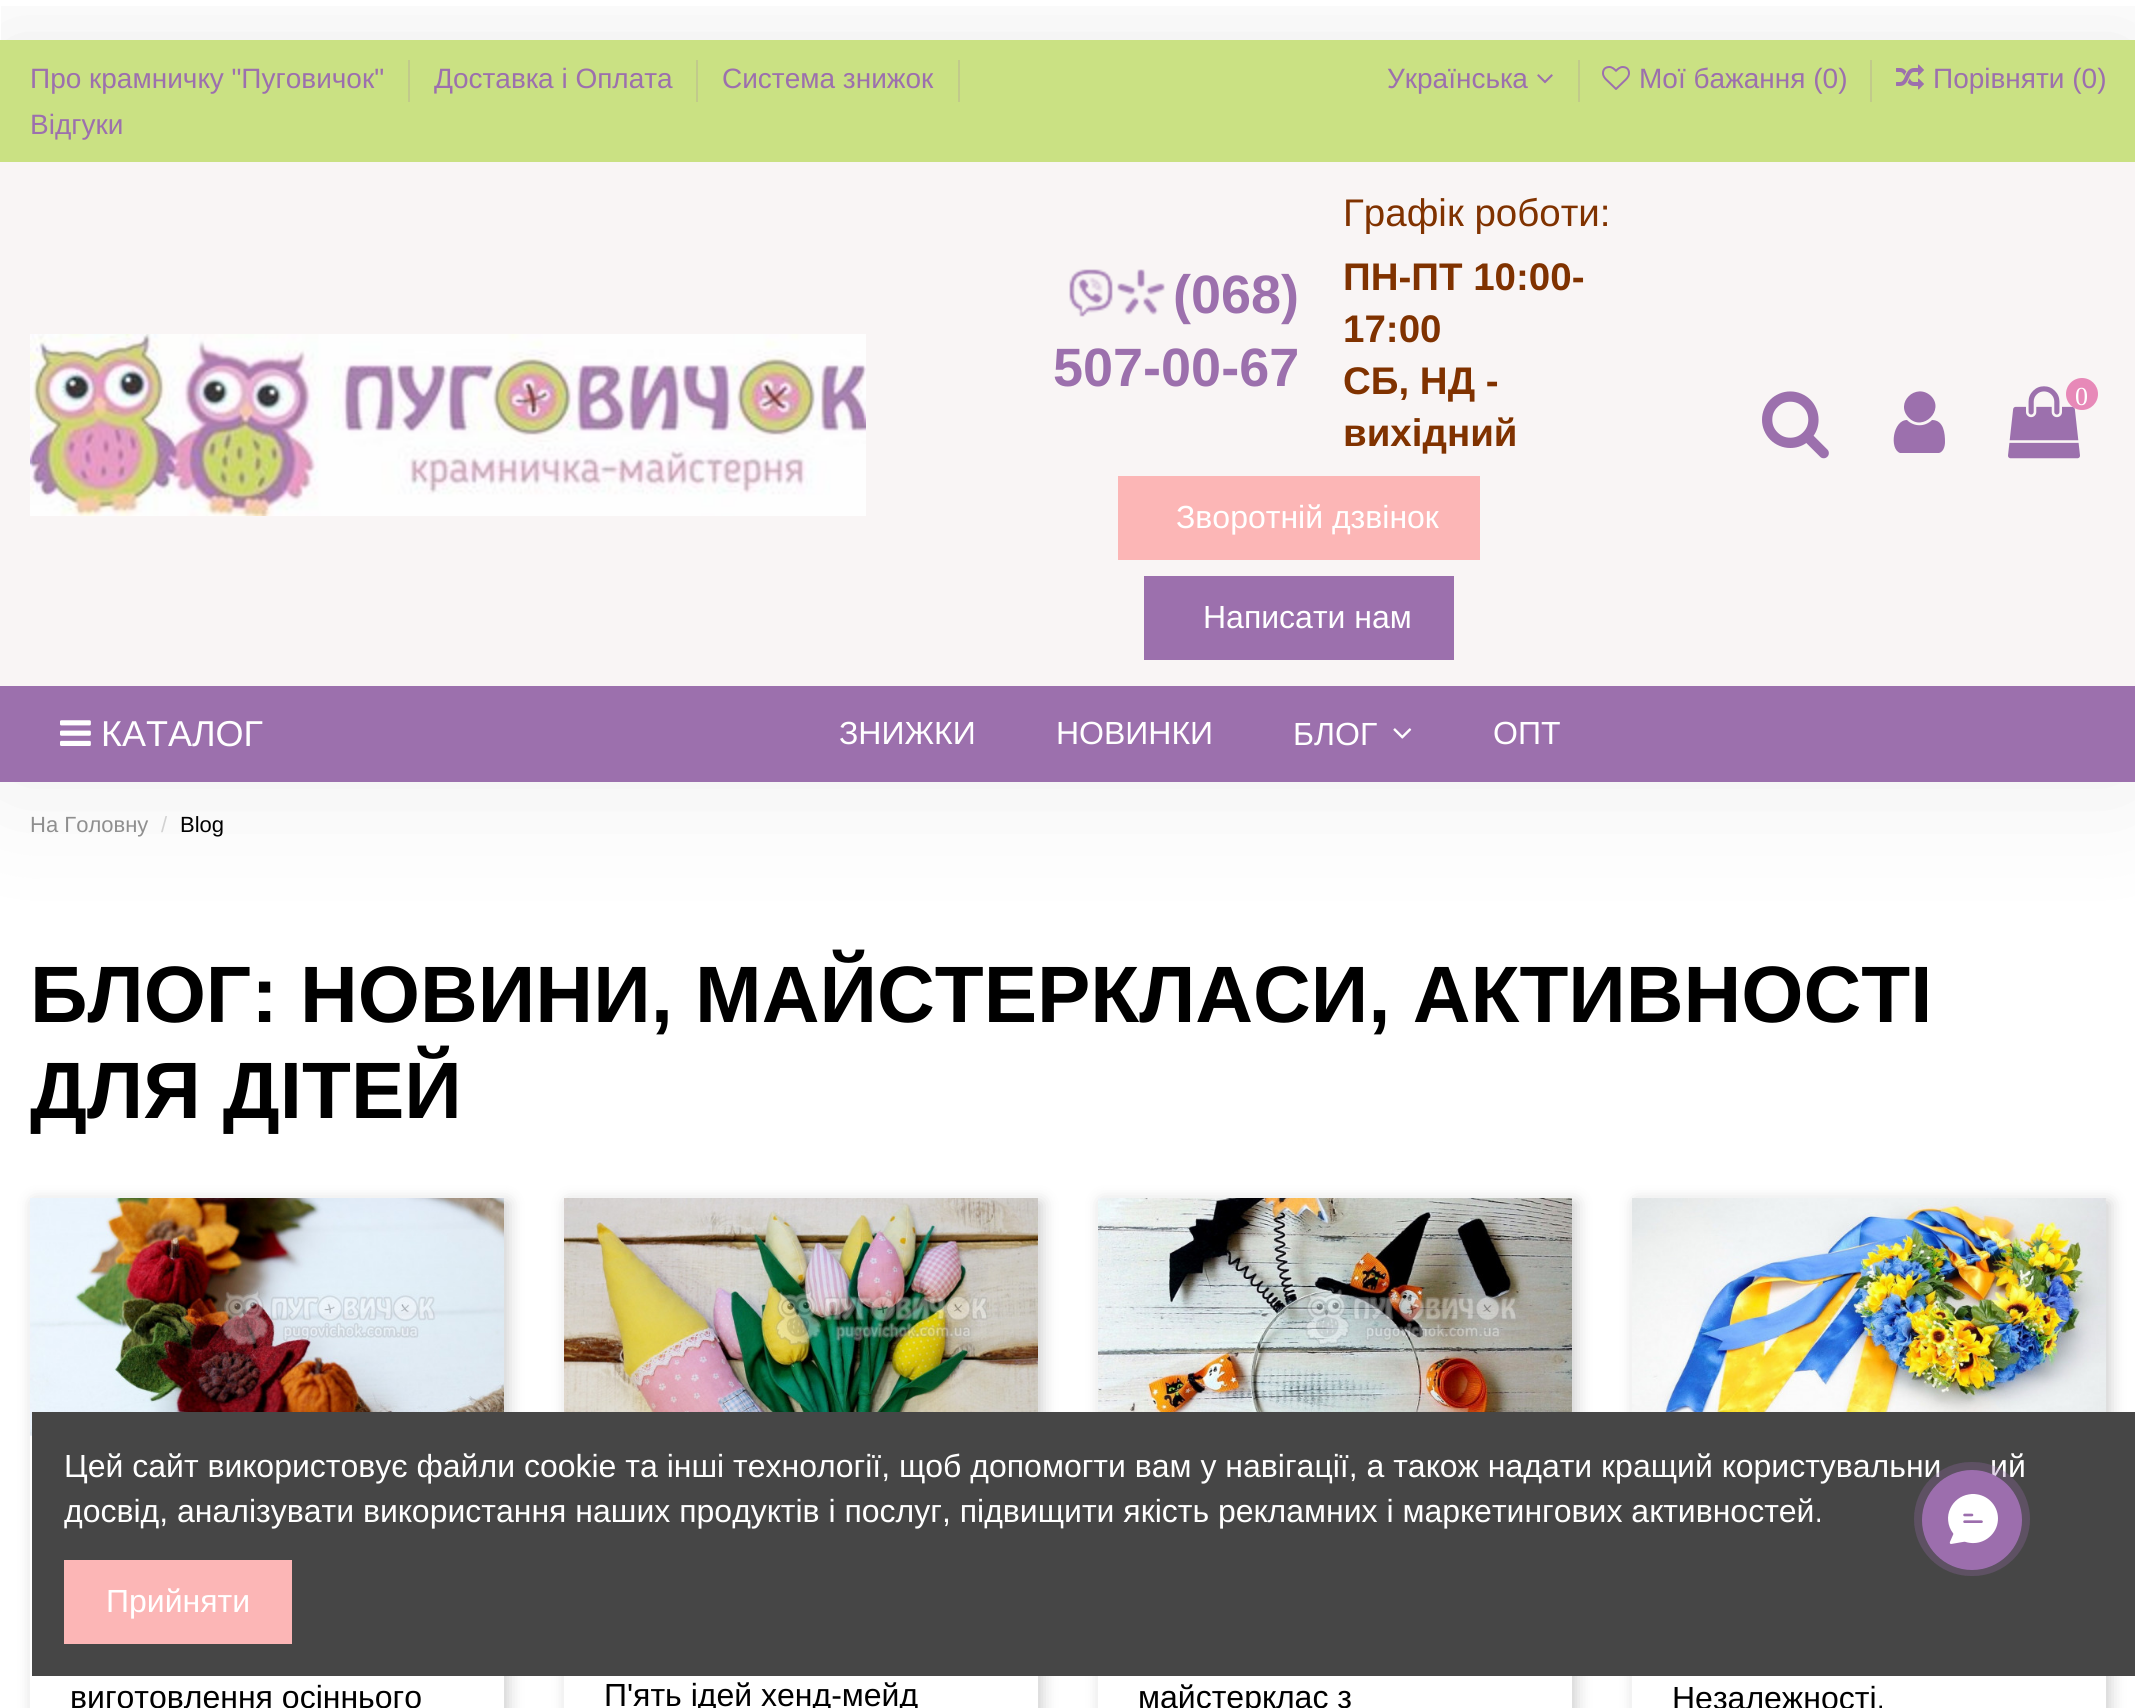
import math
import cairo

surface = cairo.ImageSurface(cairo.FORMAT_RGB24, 2135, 1708)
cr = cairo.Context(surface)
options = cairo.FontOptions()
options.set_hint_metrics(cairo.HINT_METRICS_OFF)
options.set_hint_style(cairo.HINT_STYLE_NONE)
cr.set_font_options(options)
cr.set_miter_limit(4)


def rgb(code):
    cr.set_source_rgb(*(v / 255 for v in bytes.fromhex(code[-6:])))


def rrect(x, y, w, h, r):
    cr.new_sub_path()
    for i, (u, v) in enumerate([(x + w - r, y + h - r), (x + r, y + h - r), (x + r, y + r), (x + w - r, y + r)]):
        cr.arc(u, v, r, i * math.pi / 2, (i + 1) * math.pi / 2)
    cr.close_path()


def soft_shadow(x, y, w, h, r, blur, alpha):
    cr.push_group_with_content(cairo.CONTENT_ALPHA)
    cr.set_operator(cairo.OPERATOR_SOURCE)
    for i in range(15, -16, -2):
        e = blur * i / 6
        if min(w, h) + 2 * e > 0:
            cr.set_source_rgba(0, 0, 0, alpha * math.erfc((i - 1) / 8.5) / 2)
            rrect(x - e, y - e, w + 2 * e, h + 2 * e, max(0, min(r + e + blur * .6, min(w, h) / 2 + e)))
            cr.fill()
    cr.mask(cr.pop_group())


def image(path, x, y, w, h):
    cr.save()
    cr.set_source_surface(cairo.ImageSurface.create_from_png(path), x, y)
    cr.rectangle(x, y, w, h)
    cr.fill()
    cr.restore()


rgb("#ffffff")
cr.paint()
cr.save()
cr.rectangle(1, 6, 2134, 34)
cr.clip()
rgb("#000000")
soft_shadow(0, 40, 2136, 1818, 0, 50, 0.08)
cr.restore()
cr.save()
cr.rectangle(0, 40, 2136, 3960)
cr.clip()
rgb("#3d3939")
soft_shadow(0, 36, 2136, 742, 0, 67, 0.1)
cr.restore()
for x, y, w, h, color in [
    (0, 162, 2135, 524, "#f9f5f5"),
    (0, 40, 2135, 122, "#cae183"),
    (408, 60, 2, 42, "#c1ca8b"),
    (696, 60, 2, 42, "#c1ca8b"),
    (958, 60, 2, 42, "#c1ca8b"),
]:
    rgb(color)
    cr.rectangle(x, y, w, h)
    cr.fill()
image("img/1.png", 1537, 74, 16, 10)
cr.rectangle(1578, 60, 2, 42)
cr.fill()
image("img/2.png", 1602, 66, 28, 24)
cr.rectangle(1870, 60, 2, 42)
cr.fill()
image("img/3.png", 1896, 64, 28, 26)
image("img/4.png", 30, 334, 836, 182)
image("img/5.png", 1069, 269, 96, 48)
rgb("#fcb6b6")
cr.rectangle(1118, 476, 362, 84)
cr.fill()
rgb("#9c70ad")
cr.rectangle(1144, 576, 310, 84)
cr.fill()
image("img/6.png", 1762, 391, 67, 68)
cr.new_path()
cr.move_to(1945, 442)
cr.curve_to(1945, 447, 1943, 452, 1939, 453)
cr.line_to(1908, 453)
cr.line_to(1900, 453)
cr.curve_to(1889, 449, 1893, 420, 1907, 420)
cr.curve_to(1914, 427, 1925, 427, 1932, 420)
cr.curve_to(1944, 420, 1945, 434, 1945, 442)
cr.close_path()
cr.move_to(1931, 396)
cr.curve_to(1945, 410, 1923, 432, 1909, 418)
cr.curve_to(1894, 403, 1916, 382, 1931, 396)
cr.close_path()
cr.fill()
image("img/7.png", 2008, 386, 72, 73)
rgb("#e789b8")
cr.arc(2082, 394, 16, 0, 2 * math.pi)
cr.fill()
rgb("#9c70ad")
cr.rectangle(0, 686, 2135, 96)
cr.fill()
image("img/8.png", 60, 720, 31, 26)
image("img/9.png", 1393, 728, 19, 11)
cr.save()
cr.set_fill_rule(cairo.FILL_RULE_EVEN_ODD)
cr.new_path()
cr.move_to(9, 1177)
cr.line_to(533, 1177)
cr.line_to(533, 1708)
cr.line_to(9, 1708)
cr.close_path()
cr.move_to(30, 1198)
cr.line_to(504, 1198)
cr.line_to(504, 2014)
cr.line_to(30, 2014)
cr.close_path()
cr.clip()
rgb("#000000")
soft_shadow(34, 1202, 474, 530, 0, 8, 0.2)
cr.restore()
image("img/10.png", 30, 1198, 474, 238)
cr.save()
cr.set_fill_rule(cairo.FILL_RULE_EVEN_ODD)
cr.new_path()
cr.move_to(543, 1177)
cr.line_to(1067, 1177)
cr.line_to(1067, 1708)
cr.line_to(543, 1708)
cr.close_path()
cr.move_to(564, 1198)
cr.line_to(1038, 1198)
cr.line_to(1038, 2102)
cr.line_to(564, 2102)
cr.close_path()
cr.clip()
rgb("#000000")
soft_shadow(568, 1202, 474, 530, 0, 8, 0.2)
cr.restore()
image("img/11.png", 564, 1198, 474, 214)
cr.save()
cr.set_fill_rule(cairo.FILL_RULE_EVEN_ODD)
cr.new_path()
cr.move_to(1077, 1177)
cr.line_to(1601, 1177)
cr.line_to(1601, 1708)
cr.line_to(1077, 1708)
cr.close_path()
cr.move_to(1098, 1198)
cr.line_to(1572, 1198)
cr.line_to(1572, 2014)
cr.line_to(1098, 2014)
cr.close_path()
cr.clip()
rgb("#000000")
soft_shadow(1102, 1202, 474, 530, 0, 8, 0.2)
cr.restore()
image("img/12.png", 1098, 1198, 474, 214)
cr.save()
cr.set_fill_rule(cairo.FILL_RULE_EVEN_ODD)
cr.new_path()
cr.move_to(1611, 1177)
cr.line_to(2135, 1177)
cr.line_to(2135, 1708)
cr.line_to(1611, 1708)
cr.close_path()
cr.move_to(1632, 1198)
cr.line_to(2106, 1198)
cr.line_to(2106, 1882)
cr.line_to(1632, 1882)
cr.close_path()
cr.clip()
rgb("#000000")
soft_shadow(1636, 1202, 474, 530, 0, 8, 0.2)
cr.restore()
image("img/13.png", 1632, 1198, 474, 214)
rgb("#464646")
cr.rectangle(32, 1412, 2103, 264)
cr.fill()
rgb("#fcb6b6")
cr.rectangle(64, 1560, 228, 84)
cr.fill()
cr.select_font_face("Liberation Sans")
cr.set_font_size(28)
rgb("#9c70ad")
for x, y, s in [
    (30, 88, "Про крамничку \"Пуговичок\""),
    (434, 88, "Доставка і Оплата"),
    (722, 88, "Система знижок"),
    (30, 134, "Відгуки"),
    (1387, 88, "Українська"),
    (1639, 88, "Мої бажання (0)"),
    (1933, 88, "Порівняти (0)"),
]:
    cr.move_to(x, y)
    cr.show_text(s)
cr.select_font_face("Liberation Sans", cairo.FONT_SLANT_NORMAL, cairo.FONT_WEIGHT_BOLD)
cr.set_font_size(54)
cr.move_to(1173, 313)
cr.show_text("(068)")
cr.move_to(1053, 386)
cr.show_text("507-00-67")
cr.select_font_face("Liberation Sans")
cr.set_font_size(38.5)
rgb("#803200")
cr.move_to(1343, 226)
cr.show_text("Графік роботи:")
cr.select_font_face("Liberation Sans", cairo.FONT_SLANT_NORMAL, cairo.FONT_WEIGHT_BOLD)
for x, y, s in [
    (1343, 290, "ПН-ПТ 10:00-"),
    (1343, 342, "17:00"),
    (1343, 394, "СБ, НД -"),
    (1343, 446, "вихідний"),
]:
    cr.move_to(x, y)
    cr.show_text(s)
cr.select_font_face("Liberation Sans")
cr.set_font_size(32)
rgb("#ffffff")
cr.move_to(1176, 528)
cr.show_text("Зворотній дзвінок")
cr.move_to(1203, 628)
cr.show_text("Написати нам")
cr.select_font_face("Liberation Serif")
cr.set_font_size(26)
cr.move_to(2075, 405)
cr.show_text("0")
cr.select_font_face("Liberation Sans")
cr.set_font_size(36)
cr.move_to(101, 746)
cr.show_text("КАТАЛОГ")
cr.set_font_size(32)
for x, y, s in [
    (839, 744, "ЗНИЖКИ"),
    (1056, 744, "НОВИНКИ"),
    (1293, 745, "БЛОГ"),
    (1493, 744, "ОПТ"),
]:
    cr.move_to(x, y)
    cr.show_text(s)
cr.set_font_size(22)
rgb("#8f8f8f")
cr.move_to(30, 832)
cr.show_text("На Головну")
rgb("#d2d2d2")
cr.move_to(161, 832)
cr.show_text("/")
rgb("#000000")
cr.move_to(180, 832)
cr.show_text("Blog")
cr.select_font_face("Liberation Sans", cairo.FONT_SLANT_NORMAL, cairo.FONT_WEIGHT_BOLD)
cr.set_font_size(80)
cr.move_to(30, 1022)
cr.show_text("БЛОГ: НОВИНИ, МАЙСТЕРКЛАСИ, АКТИВНОСТІ")
cr.move_to(30, 1118)
cr.show_text("ДЛЯ ДІТЕЙ")
cr.select_font_face("Liberation Sans")
cr.set_font_size(32)
for x, y, s in [
    (70, 1708, "виготовлення осіннього"),
    (604, 1706, "П'ять ідей хенд-мейд"),
    (1138, 1708, "майстерклас з"),
    (1672, 1709, "Незалежності."),
]:
    cr.move_to(x, y)
    cr.show_text(s)
rgb("#ffffff")
for x, y, s in [
    (64, 1477, "Цей сайт використовує файли cookie та інші технології, щоб допомогти вам у навігації, а також надати кращий користувальни"),
    (1990, 1477, "ий"),
    (64, 1522, "досвід, аналізувати використання наших продуктів і послуг, підвищити якість рекламних і маркетингових активностей."),
    (106, 1612, "Прийняти"),
]:
    cr.move_to(x, y)
    cr.show_text(s)
rgb("#9c70ad")
cr.new_path()
cr.arc(1972, 1520, 50, 0, 2 * math.pi)
cr.fill()
cr.set_source_rgba(0.612, 0.439, 0.678, 0.15)
rrect(1914, 1462, 116, 114, 57)
cr.fill()
rrect(1914, 1462, 116, 114, 57)
cr.fill()
image("img/14.png", 1948, 1494, 50, 50)
surface.write_to_png("page.png")
